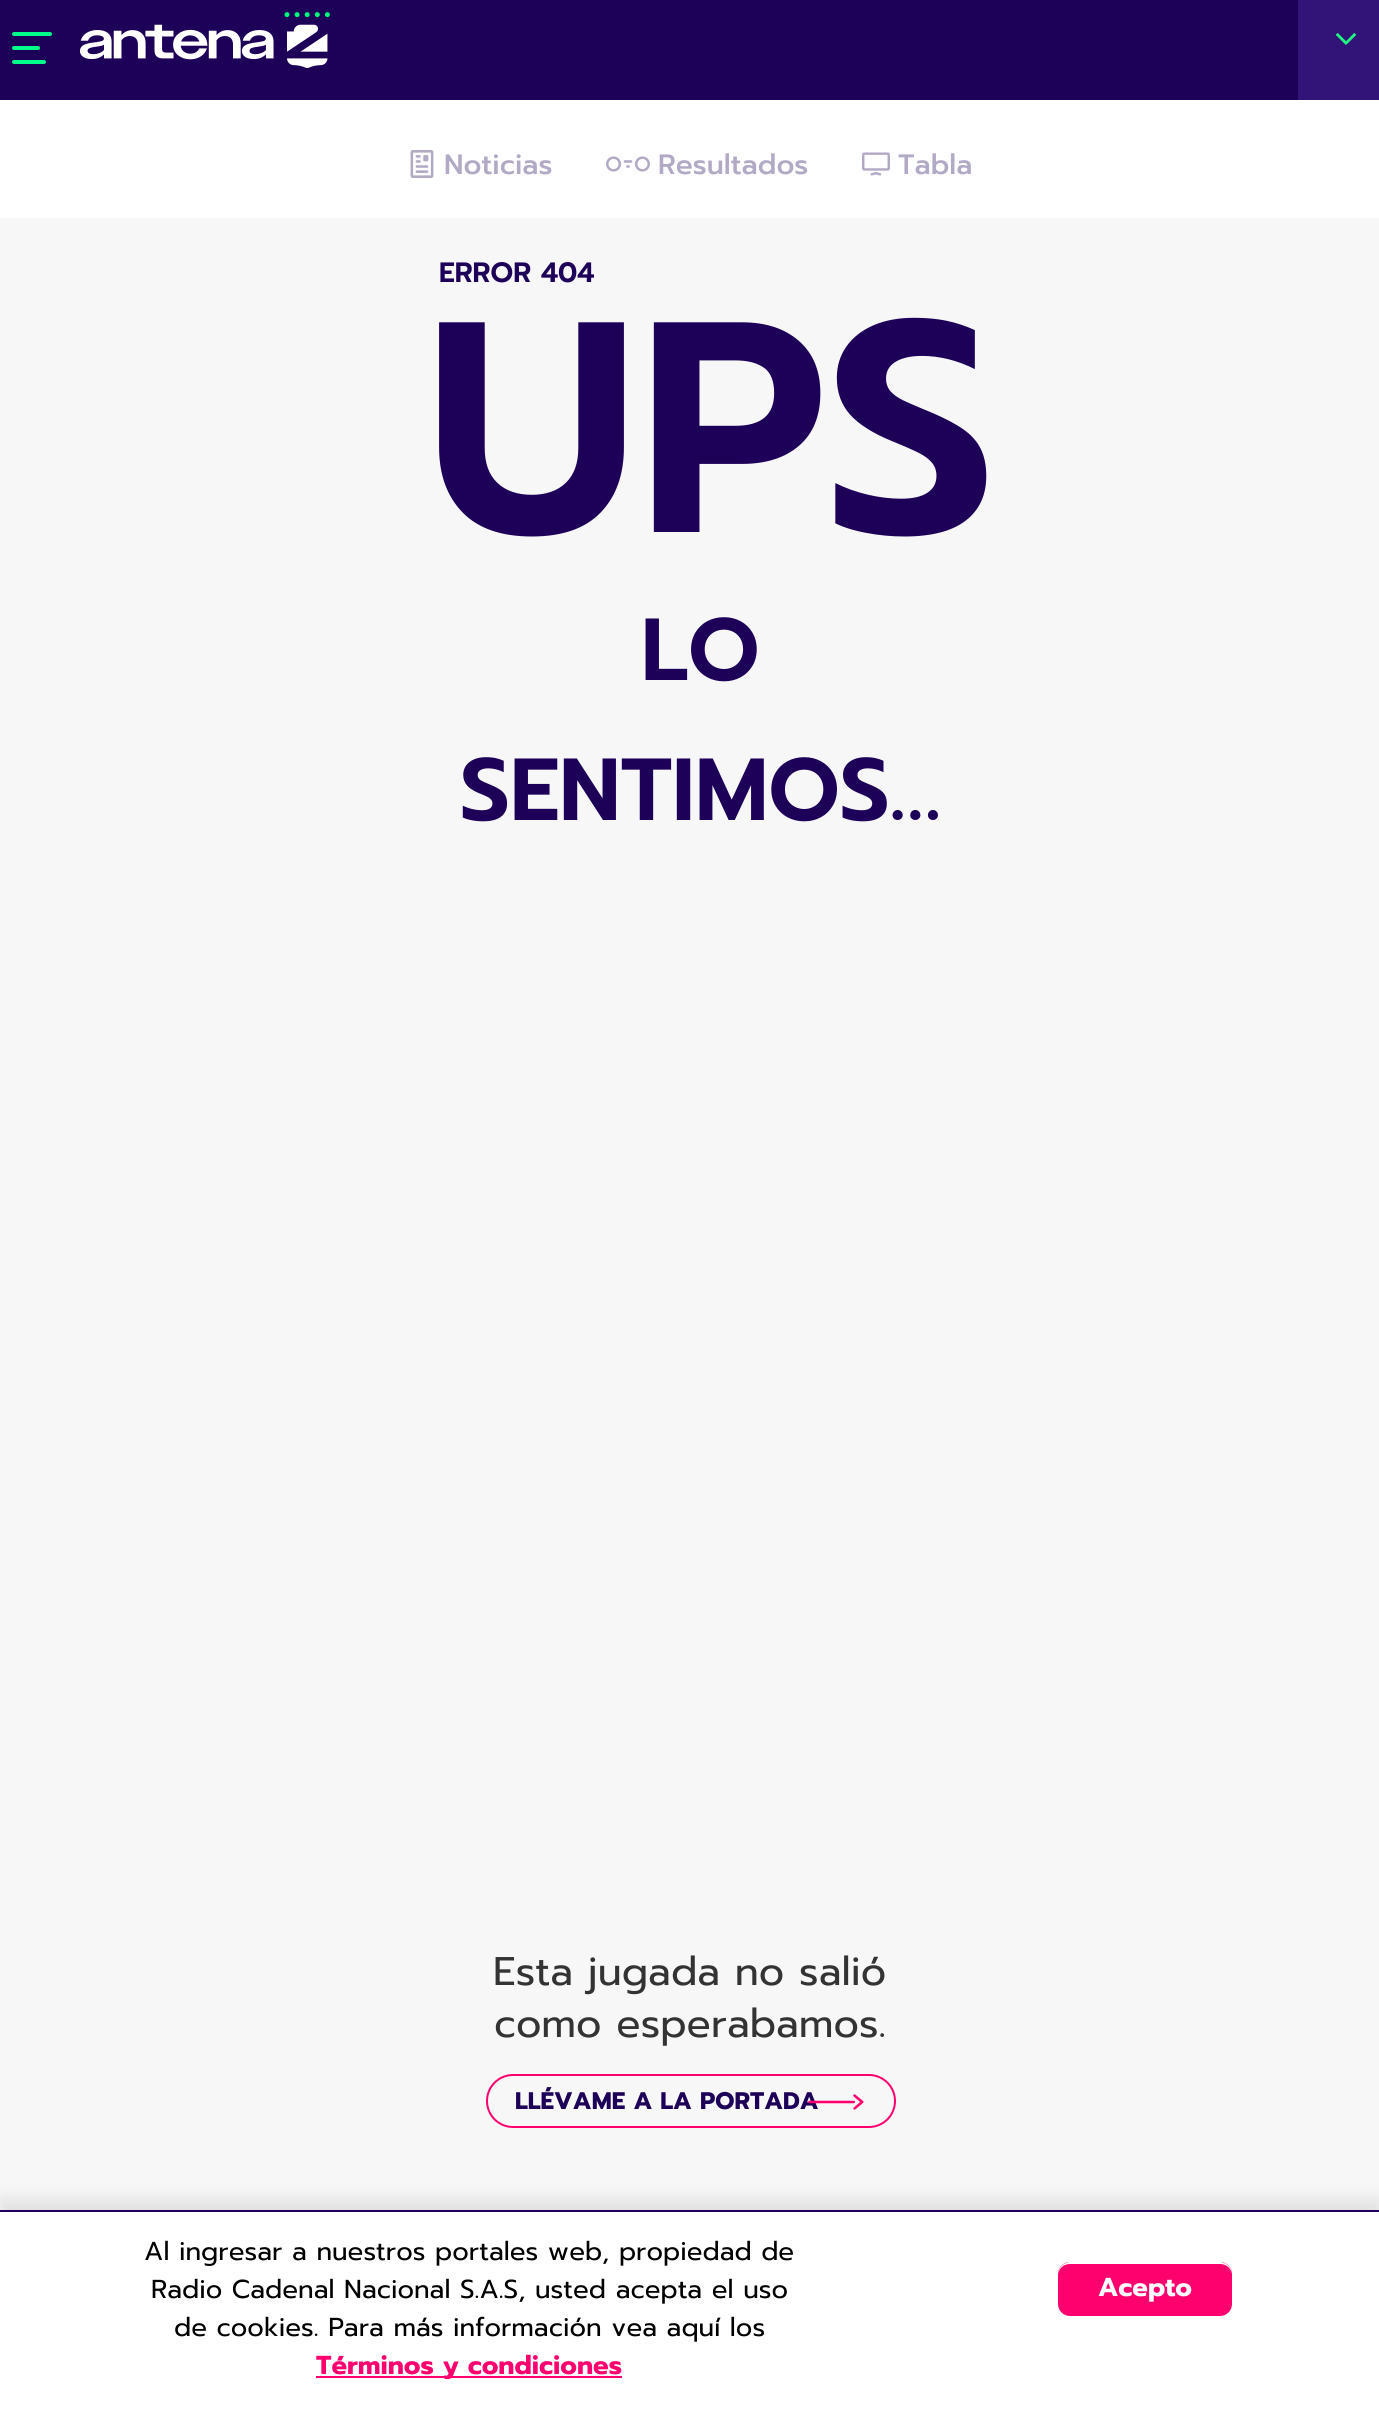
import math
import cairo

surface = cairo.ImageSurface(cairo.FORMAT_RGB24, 1379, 2411)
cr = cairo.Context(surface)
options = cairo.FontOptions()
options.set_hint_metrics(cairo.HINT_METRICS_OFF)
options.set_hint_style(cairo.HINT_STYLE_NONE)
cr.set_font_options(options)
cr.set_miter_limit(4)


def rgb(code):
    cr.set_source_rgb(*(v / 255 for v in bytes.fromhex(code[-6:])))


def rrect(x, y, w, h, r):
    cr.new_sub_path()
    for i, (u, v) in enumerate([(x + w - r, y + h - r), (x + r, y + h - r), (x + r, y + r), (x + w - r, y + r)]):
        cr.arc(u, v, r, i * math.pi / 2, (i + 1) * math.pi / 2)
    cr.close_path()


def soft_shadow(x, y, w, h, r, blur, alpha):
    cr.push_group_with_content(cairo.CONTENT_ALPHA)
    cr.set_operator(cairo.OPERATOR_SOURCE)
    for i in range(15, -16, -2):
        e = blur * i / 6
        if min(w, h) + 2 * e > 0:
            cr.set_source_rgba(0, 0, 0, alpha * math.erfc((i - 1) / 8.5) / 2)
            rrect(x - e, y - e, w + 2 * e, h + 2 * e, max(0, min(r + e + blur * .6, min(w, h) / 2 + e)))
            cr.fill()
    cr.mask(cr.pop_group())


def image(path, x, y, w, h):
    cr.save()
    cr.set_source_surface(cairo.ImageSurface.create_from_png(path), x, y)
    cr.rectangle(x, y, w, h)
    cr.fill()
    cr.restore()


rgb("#f7f7f7")
cr.paint()
rgb("#1d0058")
cr.rectangle(0, 0, 1298, 100)
cr.fill()
rgb("#00ff8a")
rrect(12, 60, 34, 4, 2)
cr.fill()
rrect(12, 32, 40, 4, 2)
cr.fill()
rrect(12, 46, 28, 4, 2)
cr.fill()
image("img/1.png", 80, 12, 250, 56)
rgb("#321479")
cr.rectangle(1298, 0, 81, 100)
cr.fill()
image("img/2.png", 1336, 33, 20, 12)
rgb("#ffffff")
cr.rectangle(0, 100, 1379, 118)
cr.fill()
image("img/3.png", 410, 150, 24, 28)
image("img/4.png", 606, 156, 44, 16)
image("img/5.png", 862, 152, 28, 24)
rrect(487, 2075, 408, 52, 26)
rgb("#ff006f")
cr.stroke()
rgb("#000000")
soft_shadow(0, 2200, 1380, 202, 0, 9, 0.1)
for x, y, w, h, color in [
    (0, 2212, 1379, 199, "#ffffff"),
    (0, 2210, 1379, 2, "#1d0058"),
    (316, 2376, 306, 2, "#ff006f"),
]:
    rgb(color)
    cr.rectangle(x, y, w, h)
    cr.fill()
rrect(1058, 2262, 174, 54, 12)
cr.fill()
rgb("#ffffff")
cr.new_path()
cr.move_to(1070, 2264)
cr.line_to(1220, 2264)
cr.curve_to(1227, 2264, 1232, 2269, 1232, 2276)
cr.curve_to(1232, 2256, 1208, 2262, 1195, 2262)
cr.line_to(1095, 2262)
cr.curve_to(1082, 2262, 1058, 2256, 1058, 2276)
cr.curve_to(1058, 2269, 1063, 2264, 1070, 2264)
cr.close_path()
cr.fill()
cr.select_font_face("Prompt Medium")
cr.set_font_size(28)
rgb("#b2a9c5")
for x, y, s in [
    (444, 174, "Noticias"),
    (658, 174, "Resultados"),
    (898, 174, "Tabla"),
]:
    cr.move_to(x, y)
    cr.show_text(s)
cr.select_font_face("Prompt SemiBold")
rgb("#1d0058")
cr.move_to(439, 282)
cr.show_text("ERROR 404")
cr.set_font_size(300)
cr.move_to(425, 532)
cr.show_text("UPS")
cr.set_font_size(88)
cr.move_to(641, 680)
cr.show_text("LO")
cr.move_to(460, 820)
cr.show_text("SENTIMOS…")
cr.select_font_face("Prompt")
cr.set_font_size(40)
rgb("#333333")
cr.move_to(493, 1985)
cr.show_text("Esta jugada no salió")
cr.move_to(494, 2037)
cr.show_text("como esperabamos.")
cr.select_font_face("Prompt", cairo.FONT_SLANT_NORMAL, cairo.FONT_WEIGHT_BOLD)
cr.set_font_size(24)
rgb("#1d0058")
cr.move_to(515, 2109)
cr.show_text("LLÉVAME A LA PORTADA")
image("img/6.png", 808, 2094, 56, 16)
cr.select_font_face("Prompt")
cr.set_font_size(26)
rgb("#000000")
for x, y, s in [
    (144, 2260, "Al ingresar a nuestros portales web, propiedad de"),
    (151, 2298, "Radio Cadenal Nacional S.A.S, usted acepta el uso"),
    (174, 2336, "de cookies. Para más información vea aquí los"),
]:
    cr.move_to(x, y)
    cr.show_text(s)
cr.select_font_face("Prompt", cairo.FONT_SLANT_NORMAL, cairo.FONT_WEIGHT_BOLD)
rgb("#ff006f")
cr.move_to(316, 2374)
cr.show_text("Términos y condiciones")
rgb("#ffffff")
cr.move_to(1098, 2296)
cr.show_text("Acepto")
surface.write_to_png("page.png")
